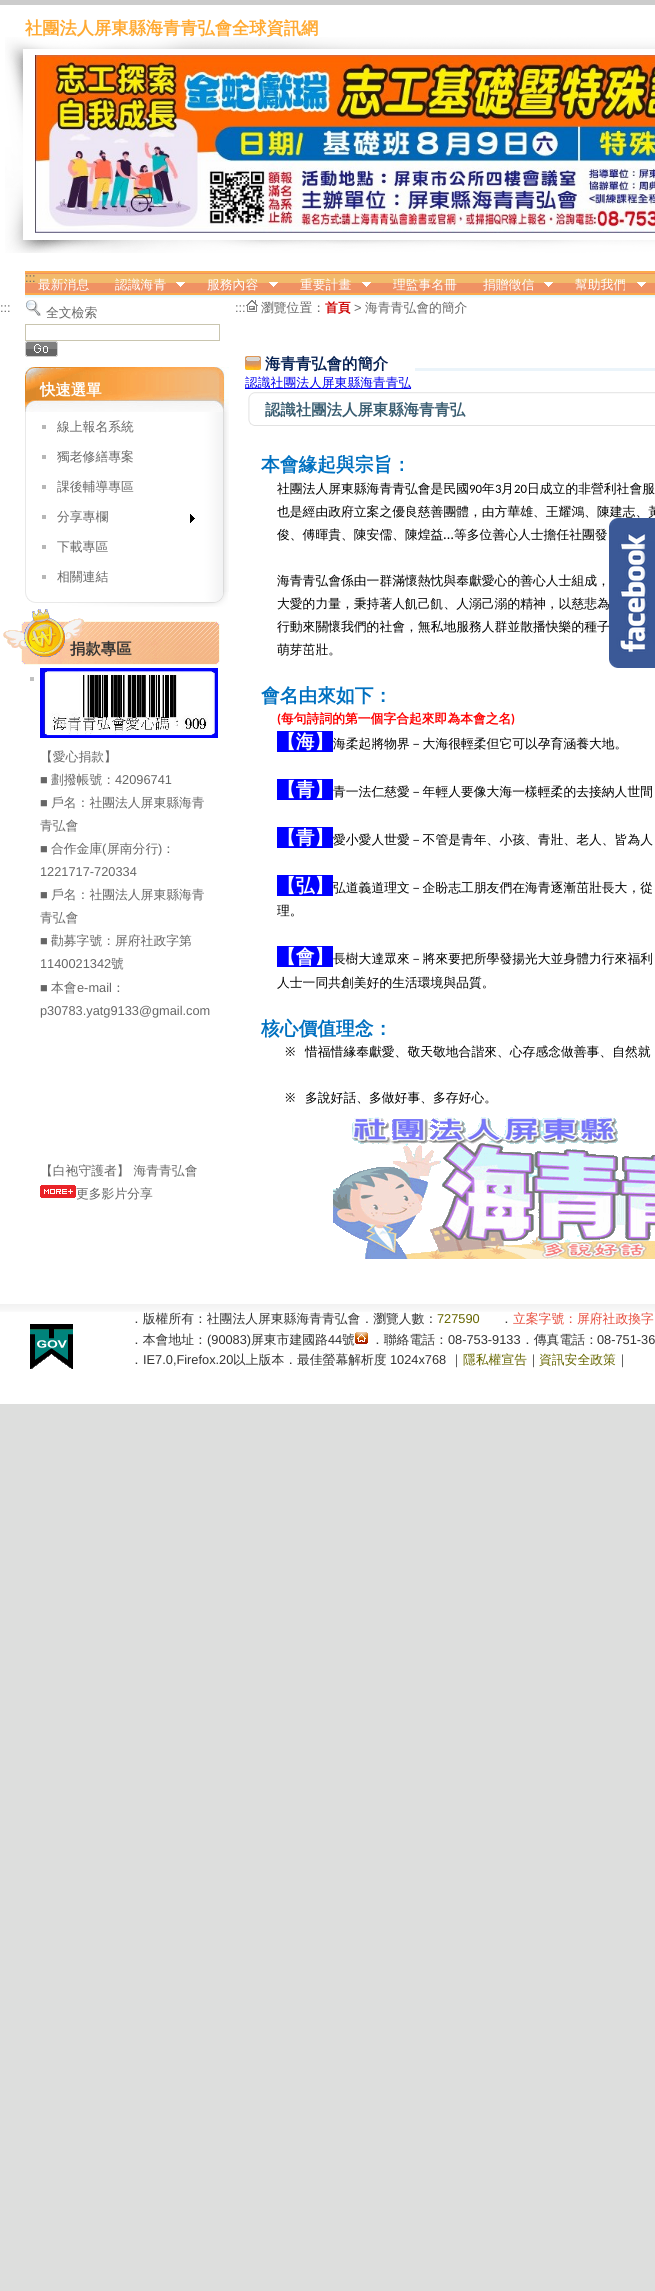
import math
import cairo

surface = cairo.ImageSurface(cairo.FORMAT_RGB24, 655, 2291)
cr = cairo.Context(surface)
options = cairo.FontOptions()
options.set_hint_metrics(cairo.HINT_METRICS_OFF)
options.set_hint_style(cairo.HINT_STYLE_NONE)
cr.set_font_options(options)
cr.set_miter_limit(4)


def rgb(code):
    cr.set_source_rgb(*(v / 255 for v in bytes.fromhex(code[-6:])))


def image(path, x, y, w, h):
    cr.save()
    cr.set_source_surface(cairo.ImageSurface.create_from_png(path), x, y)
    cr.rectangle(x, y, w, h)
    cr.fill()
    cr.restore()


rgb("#dddedd")
cr.paint()
rgb("#ffffff")
cr.rectangle(0, 5, 655, 1399)
cr.fill()
rgb("#cccccc")
cr.rectangle(0, 0, 655, 5)
cr.fill()
image("img/1.png", 5, 37, 650, 216)
image("img/2.png", 35, 55, 620, 178)
image("img/3.png", 25, 271, 630, 27)
image("img/4.png", 176, 282, 9, 5)
image("img/4.png", 269, 282, 9, 5)
image("img/4.png", 362, 282, 9, 5)
image("img/4.png", 544, 282, 9, 5)
image("img/4.png", 637, 282, 9, 5)
image("img/5.png", 26, 300, 15, 16)
cr.rectangle(25.5, 324.5, 194, 16)
rgb("#c9c5af")
cr.set_line_width(1)
cr.stroke()
image("img/6.png", 25, 341, 33, 16)
image("img/7.png", 25, 367, 204, 45)
image("img/8.png", 25, 592, 203, 15)
image("img/9.png", 25, 412, 204, 30)
rgb("#b7b7b7")
cr.rectangle(42, 425, 4, 4)
cr.fill()
image("img/9.png", 25, 442, 204, 30)
cr.rectangle(42, 455, 4, 4)
cr.fill()
image("img/9.png", 25, 472, 204, 30)
cr.rectangle(42, 485, 4, 4)
cr.fill()
image("img/9.png", 25, 502, 204, 30)
cr.rectangle(42, 515, 4, 4)
cr.fill()
image("img/10.png", 190, 514, 5, 9)
image("img/9.png", 25, 532, 204, 30)
cr.rectangle(42, 545, 4, 4)
cr.fill()
image("img/9.png", 25, 562, 204, 30)
cr.rectangle(42, 575, 4, 4)
cr.fill()
image("img/11.png", 3, 609, 217, 56)
rgb("#c0c0c0")
cr.rectangle(30, 677, 4, 4)
cr.fill()
image("img/12.png", 40, 668, 178, 70)
image("img/13.png", 40, 1185, 36, 13)
image("img/14.png", 246, 300, 12, 12)
image("img/15.png", 245, 356, 16, 14)
rgb("#ebf4fa")
cr.rectangle(415, 368, 240, 3)
cr.fill()
rgb("#0000ee")
cr.rectangle(245, 388, 166, 1)
cr.fill()
image("img/16.png", 248, 392, 407, 34)
for x, y, w, h, color in [
    (277, 731, 56, 21, "#0000ff"),
    (277, 779, 56, 21, "#0000ff"),
    (277, 827, 56, 21, "#0000ff"),
    (277, 875, 56, 21, "#0000ff"),
    (277, 946, 56, 21, "#0000ff"),
]:
    rgb(color)
    cr.rectangle(x, y, w, h)
    cr.fill()
image("img/17.png", 333, 1117, 322, 142)
image("img/18.png", 0, 1304, 655, 8)
image("img/19.png", 30, 1324, 43, 45)
image("img/20.png", 355, 1332, 13, 12)
cr.select_font_face("WenQuanYi Zen Hei", cairo.FONT_SLANT_NORMAL, cairo.FONT_WEIGHT_BOLD)
cr.set_font_size(17.25)
rgb("#ffaa33")
cr.move_to(25, 34)
cr.show_text("社團法人屏東縣海青青弘會全球資訊網")
cr.select_font_face("Liberation Sans")
cr.set_font_size(12.8)
rgb("#666666")
cr.move_to(25, 282)
cr.show_text(":::")
cr.select_font_face("WenQuanYi Zen Hei Medium")
rgb("#ffffff")
for x, y, s in [
    (38, 289, "最新消息"),
    (115, 289, "認識海青"),
    (207, 289, "服務內容"),
    (300, 289, "重要計畫"),
    (393, 289, "理監事名冊"),
    (483, 289, "捐贈徵信"),
    (575, 289, "幫助我們"),
]:
    cr.move_to(x, y)
    cr.show_text(s)
cr.select_font_face("Liberation Sans")
rgb("#666666")
cr.move_to(0, 312)
cr.show_text(":::")
cr.select_font_face("WenQuanYi Zen Hei Medium")
cr.move_to(46, 317)
cr.show_text("全文檢索")
cr.select_font_face("WenQuanYi Zen Hei", cairo.FONT_SLANT_NORMAL, cairo.FONT_WEIGHT_BOLD)
cr.set_font_size(15.4)
rgb("#ffffff")
cr.move_to(40, 395)
cr.show_text("快速選單")
cr.select_font_face("WenQuanYi Zen Hei Medium")
cr.set_font_size(12.8)
rgb("#666666")
for x, y, s in [
    (57, 431, "線上報名系統"),
    (57, 461, "獨老修繕專案"),
    (57, 491, "課後輔導專區"),
    (57, 521, "分享專欄"),
    (57, 551, "下載專區"),
    (57, 581, "相關連結"),
]:
    cr.move_to(x, y)
    cr.show_text(s)
cr.select_font_face("WenQuanYi Zen Hei", cairo.FONT_SLANT_NORMAL, cairo.FONT_WEIGHT_BOLD)
cr.set_font_size(15.4)
rgb("#333333")
cr.move_to(70, 654)
cr.show_text("捐款專區")
cr.select_font_face("WenQuanYi Zen Hei Medium")
cr.set_font_size(12.8)
rgb("#666666")
cr.move_to(40, 761)
cr.show_text("【愛心捐款】")
cr.select_font_face("Liberation Sans")
cr.move_to(40, 784)
cr.show_text("■")
cr.select_font_face("WenQuanYi Zen Hei Medium")
cr.move_to(51, 784)
cr.show_text("劃撥帳號：")
cr.select_font_face("Liberation Sans")
cr.move_to(115, 784)
cr.show_text("42096741")
cr.move_to(40, 807)
cr.show_text("■")
cr.select_font_face("WenQuanYi Zen Hei Medium")
cr.move_to(51, 807)
cr.show_text("戶名：社團法人屏東縣海青")
cr.move_to(40, 830)
cr.show_text("青弘會")
cr.select_font_face("Liberation Sans")
cr.move_to(40, 853)
cr.show_text("■")
cr.select_font_face("WenQuanYi Zen Hei Medium")
cr.move_to(51, 853)
cr.show_text("合作金庫")
cr.select_font_face("Liberation Sans")
cr.move_to(102, 853)
cr.show_text("(")
cr.select_font_face("WenQuanYi Zen Hei Medium")
cr.move_to(107, 853)
cr.show_text("屏南分行")
cr.select_font_face("Liberation Sans")
cr.move_to(158, 853)
cr.show_text(")")
cr.select_font_face("WenQuanYi Zen Hei Medium")
cr.move_to(162, 853)
cr.show_text("：")
cr.select_font_face("Liberation Sans")
cr.move_to(40, 876)
cr.show_text("1221717-720334")
cr.move_to(40, 899)
cr.show_text("■")
cr.select_font_face("WenQuanYi Zen Hei Medium")
cr.move_to(51, 899)
cr.show_text("戶名：社團法人屏東縣海青")
cr.move_to(40, 922)
cr.show_text("青弘會")
cr.select_font_face("Liberation Sans")
cr.move_to(40, 945)
cr.show_text("■")
cr.select_font_face("WenQuanYi Zen Hei Medium")
cr.move_to(51, 945)
cr.show_text("勸募字號：屏府社政字第")
cr.select_font_face("Liberation Sans")
cr.move_to(40, 968)
cr.show_text("1140021342")
cr.select_font_face("WenQuanYi Zen Hei Medium")
cr.move_to(111, 968)
cr.show_text("號")
cr.select_font_face("Liberation Sans")
cr.move_to(40, 992)
cr.show_text("■")
cr.select_font_face("WenQuanYi Zen Hei Medium")
cr.move_to(51, 992)
cr.show_text("本會")
cr.select_font_face("Liberation Sans")
cr.move_to(77, 992)
cr.show_text("e-mail")
cr.select_font_face("WenQuanYi Zen Hei Medium")
cr.move_to(112, 992)
cr.show_text("：")
cr.select_font_face("Liberation Sans")
cr.move_to(40, 1015)
cr.show_text("p30783.yatg9133@gmail.com")
cr.select_font_face("WenQuanYi Zen Hei Medium")
cr.move_to(40, 1175)
cr.show_text("【白袍守護者】 海青青弘會")
cr.move_to(76, 1198)
cr.show_text("更多影片分享")
cr.select_font_face("Liberation Sans")
cr.move_to(235, 312)
cr.show_text(":::")
cr.select_font_face("WenQuanYi Zen Hei Medium")
cr.move_to(261, 312)
cr.show_text("瀏覽位置：")
cr.select_font_face("WenQuanYi Zen Hei", cairo.FONT_SLANT_NORMAL, cairo.FONT_WEIGHT_BOLD)
rgb("#cc0000")
cr.move_to(325, 312)
cr.show_text("首頁")
cr.select_font_face("Liberation Sans")
rgb("#666666")
cr.move_to(354, 312)
cr.show_text(">")
cr.select_font_face("WenQuanYi Zen Hei Medium")
cr.move_to(365, 312)
cr.show_text("海青青弘會的簡介")
cr.select_font_face("WenQuanYi Zen Hei", cairo.FONT_SLANT_NORMAL, cairo.FONT_WEIGHT_BOLD)
cr.set_font_size(15.4)
rgb("#041f51")
cr.move_to(265, 369)
cr.show_text("海青青弘會的簡介")
cr.select_font_face("WenQuanYi Zen Hei Medium")
cr.set_font_size(12.8)
rgb("#0000ee")
cr.move_to(245, 387)
cr.show_text("認識社團法人屏東縣海青青弘")
cr.select_font_face("WenQuanYi Zen Hei", cairo.FONT_SLANT_NORMAL, cairo.FONT_WEIGHT_BOLD)
cr.set_font_size(15.4)
rgb("#385c70")
cr.move_to(265, 415)
cr.show_text("認識社團法人屏東縣海青青弘")
cr.set_font_size(18.75)
rgb("#0070c0")
cr.move_to(261, 471)
cr.show_text("本會緣起與宗旨：")
cr.select_font_face("WenQuanYi Zen Hei Medium")
cr.set_font_size(12.8)
rgb("#000000")
cr.move_to(277, 493)
cr.show_text("社團法人屏東縣海青青弘會是民國")
cr.select_font_face("Carlito")
cr.move_to(469, 493)
cr.show_text("90")
cr.select_font_face("WenQuanYi Zen Hei Medium")
cr.move_to(482, 493)
cr.show_text("年")
cr.select_font_face("Carlito")
cr.move_to(495, 493)
cr.show_text("3")
cr.select_font_face("WenQuanYi Zen Hei Medium")
cr.move_to(501, 493)
cr.show_text("月")
cr.select_font_face("Carlito")
cr.move_to(514, 493)
cr.show_text("20")
cr.select_font_face("WenQuanYi Zen Hei Medium")
for x, y, s in [
    (527, 493, "日成立的非營利社會服"),
    (277, 516, "也是經由政府立案之優良慈善團體，由方華雄、王耀鴻、陳建志、黃"),
    (277, 539, "俊、傅暉貴、陳安儒、陳煌益"),
]:
    cr.move_to(x, y)
    cr.show_text(s)
cr.select_font_face("Noto Serif")
cr.move_to(443, 539)
cr.show_text("…")
cr.select_font_face("WenQuanYi Zen Hei Medium")
for x, y, s in [
    (454, 539, "等多位善心人士擔任社團發"),
    (277, 585, "海青青弘會係由一群滿懷熱忱與奉獻愛心的善心人士組成，"),
    (277, 608, "大愛的力量，秉持著人飢己飢、人溺己溺的精神，以慈悲為"),
    (277, 631, "行動來關懷我們的社會，無私地服務人群並散播快樂的種子"),
    (277, 654, "萌芽茁壯。"),
]:
    cr.move_to(x, y)
    cr.show_text(s)
cr.select_font_face("WenQuanYi Zen Hei", cairo.FONT_SLANT_NORMAL, cairo.FONT_WEIGHT_BOLD)
cr.set_font_size(18.75)
rgb("#0070c0")
cr.move_to(261, 702)
cr.show_text("會名由來如下：")
cr.select_font_face("Carlito", cairo.FONT_SLANT_NORMAL, cairo.FONT_WEIGHT_BOLD)
cr.set_font_size(12.8)
rgb("#ff0000")
cr.move_to(277, 723)
cr.show_text("(")
cr.select_font_face("WenQuanYi Zen Hei", cairo.FONT_SLANT_NORMAL, cairo.FONT_WEIGHT_BOLD)
cr.move_to(281, 723)
cr.show_text("每句詩詞的第一個字合起來即為本會之名")
cr.select_font_face("Carlito", cairo.FONT_SLANT_NORMAL, cairo.FONT_WEIGHT_BOLD)
cr.move_to(511, 723)
cr.show_text(")")
cr.select_font_face("WenQuanYi Zen Hei", cairo.FONT_SLANT_NORMAL, cairo.FONT_WEIGHT_BOLD)
cr.set_font_size(18.75)
rgb("#ffffff")
cr.move_to(277, 748)
cr.show_text("【海】")
cr.select_font_face("WenQuanYi Zen Hei Medium")
cr.set_font_size(12.8)
rgb("#000000")
cr.move_to(333, 748)
cr.show_text("海柔起將物界－大海很輕柔但它可以孕育涵養大地。")
cr.select_font_face("WenQuanYi Zen Hei", cairo.FONT_SLANT_NORMAL, cairo.FONT_WEIGHT_BOLD)
cr.set_font_size(18.75)
rgb("#ffffff")
cr.move_to(277, 796)
cr.show_text("【青】")
cr.select_font_face("WenQuanYi Zen Hei Medium")
cr.set_font_size(12.8)
rgb("#000000")
cr.move_to(333, 796)
cr.show_text("青一法仁慈愛－年輕人要像大海一樣輕柔的去接納人世間")
cr.select_font_face("WenQuanYi Zen Hei", cairo.FONT_SLANT_NORMAL, cairo.FONT_WEIGHT_BOLD)
cr.set_font_size(18.75)
rgb("#ffffff")
cr.move_to(277, 844)
cr.show_text("【青】")
cr.select_font_face("WenQuanYi Zen Hei Medium")
cr.set_font_size(12.8)
rgb("#000000")
cr.move_to(333, 844)
cr.show_text("愛小愛人世愛－不管是青年、小孩、青壯、老人、皆為人")
cr.select_font_face("WenQuanYi Zen Hei", cairo.FONT_SLANT_NORMAL, cairo.FONT_WEIGHT_BOLD)
cr.set_font_size(18.75)
rgb("#ffffff")
cr.move_to(277, 892)
cr.show_text("【弘】")
cr.select_font_face("WenQuanYi Zen Hei Medium")
cr.set_font_size(12.8)
rgb("#000000")
cr.move_to(333, 892)
cr.show_text("弘道義道理文－企盼志工朋友們在海青逐漸茁壯長大，從")
cr.move_to(277, 915)
cr.show_text("理。")
cr.select_font_face("WenQuanYi Zen Hei", cairo.FONT_SLANT_NORMAL, cairo.FONT_WEIGHT_BOLD)
cr.set_font_size(18.75)
rgb("#ffffff")
cr.move_to(277, 963)
cr.show_text("【會】")
cr.select_font_face("WenQuanYi Zen Hei Medium")
cr.set_font_size(12.8)
rgb("#000000")
cr.move_to(333, 963)
cr.show_text("長樹大達眾來－將來要把所學發揚光大並身體力行來福利")
cr.move_to(277, 987)
cr.show_text("人士一同共創美好的生活環境與品質。")
cr.select_font_face("WenQuanYi Zen Hei", cairo.FONT_SLANT_NORMAL, cairo.FONT_WEIGHT_BOLD)
cr.set_font_size(18.75)
rgb("#0070c0")
cr.move_to(261, 1035)
cr.show_text("核心價值理念：")
cr.select_font_face("Noto Serif")
cr.set_font_size(12.8)
rgb("#000000")
cr.move_to(285, 1056)
cr.show_text("※")
cr.select_font_face("WenQuanYi Zen Hei Medium")
cr.move_to(305, 1056)
cr.show_text("惜福惜緣奉獻愛、敬天敬地合諧來、心存感念做善事、自然就")
cr.select_font_face("Noto Serif")
cr.move_to(285, 1102)
cr.show_text("※")
cr.select_font_face("WenQuanYi Zen Hei Medium")
cr.move_to(305, 1102)
cr.show_text("多說好話、多做好事、多存好心。")
rgb("#333333")
cr.move_to(130, 1323)
cr.show_text("．版權所有：社團法人屏東縣海青青弘會．瀏覽人數：")
cr.select_font_face("Liberation Sans")
rgb("#666600")
cr.move_to(437, 1323)
cr.show_text("727590")
cr.select_font_face("WenQuanYi Zen Hei Medium")
rgb("#333333")
cr.move_to(500, 1323)
cr.show_text("．")
rgb("#e74c3c")
cr.move_to(513, 1323)
cr.show_text("立案字號：屏府社政換字")
rgb("#333333")
cr.move_to(130, 1344)
cr.show_text("．本會地址：")
cr.select_font_face("Liberation Sans")
cr.move_to(207, 1344)
cr.show_text("(90083)")
cr.select_font_face("WenQuanYi Zen Hei Medium")
cr.move_to(251, 1344)
cr.show_text("屏東市建國路")
cr.select_font_face("Liberation Sans")
cr.move_to(328, 1344)
cr.show_text("44")
cr.select_font_face("WenQuanYi Zen Hei Medium")
cr.move_to(342, 1344)
cr.show_text("號")
cr.move_to(371, 1344)
cr.show_text("．聯絡電話：")
cr.select_font_face("Liberation Sans")
cr.move_to(448, 1344)
cr.show_text("08-753-9133")
cr.select_font_face("WenQuanYi Zen Hei Medium")
cr.move_to(521, 1344)
cr.show_text("．傳真電話：")
cr.select_font_face("Liberation Sans")
cr.move_to(597, 1344)
cr.show_text("08-751-36")
cr.select_font_face("WenQuanYi Zen Hei Medium")
cr.move_to(130, 1364)
cr.show_text("．")
cr.select_font_face("Liberation Sans")
cr.move_to(143, 1364)
cr.show_text("IE7.0,Firefox.20")
cr.select_font_face("WenQuanYi Zen Hei Medium")
cr.move_to(233, 1364)
cr.show_text("以上版本．最佳螢幕解析度")
cr.select_font_face("Liberation Sans")
cr.move_to(390, 1364)
cr.show_text("1024x768")
cr.select_font_face("WenQuanYi Zen Hei Medium")
cr.move_to(450, 1364)
cr.show_text("｜")
rgb("#666600")
cr.move_to(463, 1364)
cr.show_text("隱私權宣告")
rgb("#333333")
cr.move_to(527, 1364)
cr.show_text("｜")
rgb("#666600")
cr.move_to(539, 1364)
cr.show_text("資訊安全政策")
rgb("#333333")
cr.move_to(616, 1364)
cr.show_text("｜")
image("img/21.png", 609, 518, 46, 150)
surface.write_to_png("page.png")
